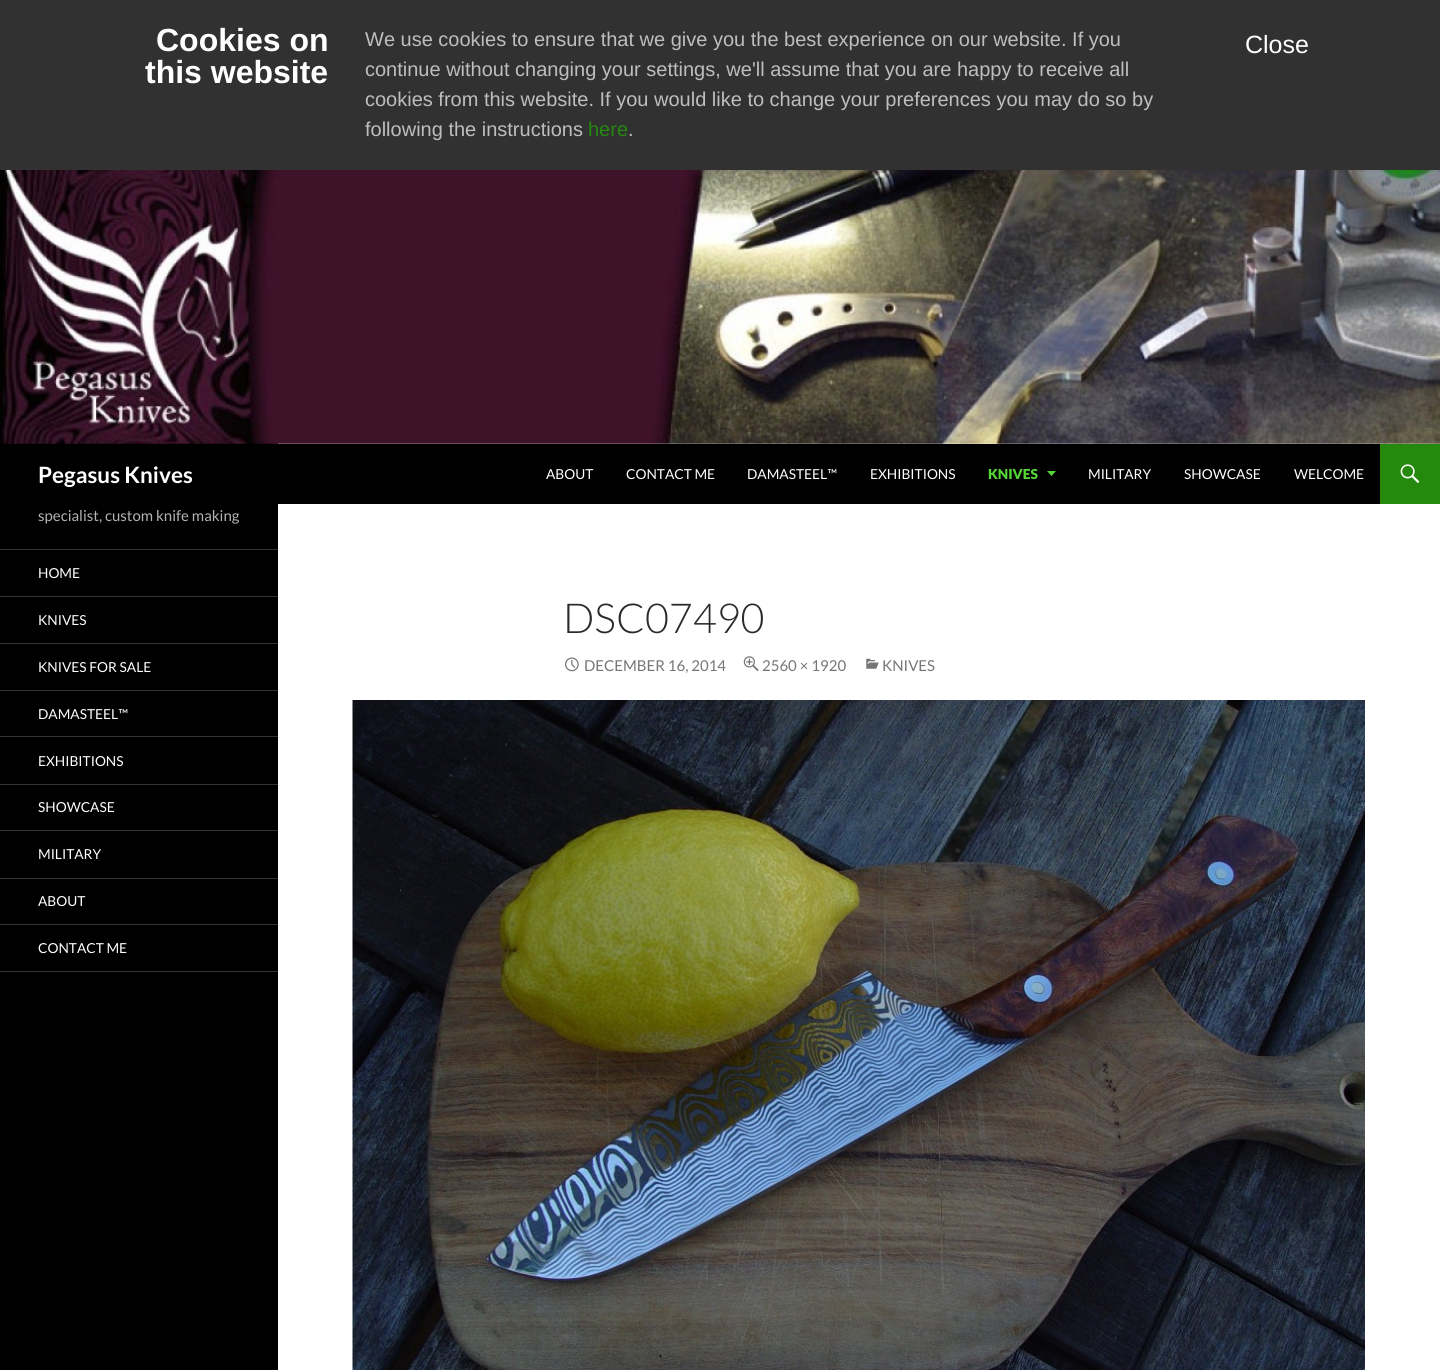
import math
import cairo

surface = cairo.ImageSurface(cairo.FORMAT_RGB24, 1440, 1370)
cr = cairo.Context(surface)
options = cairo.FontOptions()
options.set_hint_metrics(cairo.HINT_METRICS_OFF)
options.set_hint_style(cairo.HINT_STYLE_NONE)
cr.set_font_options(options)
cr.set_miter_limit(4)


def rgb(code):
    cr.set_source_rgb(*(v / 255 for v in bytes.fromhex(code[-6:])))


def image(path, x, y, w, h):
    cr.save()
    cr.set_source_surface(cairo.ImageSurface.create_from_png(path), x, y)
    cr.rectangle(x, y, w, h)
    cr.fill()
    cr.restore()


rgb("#313131")
cr.paint()
rgb("#ffffff")
cr.rectangle(278, 443, 1162, 927)
cr.fill()
rgb("#000000")
cr.rectangle(0, 443, 278, 927)
cr.fill()
image("img/1.png", 0, 170, 1440, 274)
cr.rectangle(278, 444, 1102, 60)
cr.fill()
rgb("#55d737")
cr.new_path()
cr.move_to(1047, 471)
cr.line_to(1051.5, 476)
cr.line_to(1056, 471)
cr.close_path()
cr.fill()
rgb("#24890d")
cr.rectangle(1380, 444, 60, 60)
cr.fill()
image("img/2.png", 1400, 464, 20, 19)
for x, y, w, h, color in [
    (0, 971, 278, 1, "#333333"),
    (0, 549, 278, 1, "#333333"),
    (0, 596, 278, 1, "#333333"),
    (0, 643, 278, 1, "#333333"),
    (0, 690, 278, 1, "#333333"),
    (0, 736, 278, 1, "#333333"),
    (0, 784, 278, 1, "#333333"),
    (0, 830, 278, 1, "#333333"),
    (0, 878, 278, 1, "#333333"),
    (0, 924, 278, 1, "#333333"),
]:
    rgb(color)
    cr.rectangle(x, y, w, h)
    cr.fill()
image("img/3.png", 565, 657, 14, 15)
image("img/4.png", 743, 656, 16, 16)
image("img/5.png", 866, 658, 13, 11)
image("img/6.png", 352, 700, 1013, 670)
cr.select_font_face("Liberation Sans", cairo.FONT_SLANT_NORMAL, cairo.FONT_WEIGHT_BOLD)
cr.set_font_size(32)
rgb("#ffffff")
cr.move_to(156, 51)
cr.show_text("Cookies on")
cr.move_to(145, 83)
cr.show_text("this website")
cr.select_font_face("Liberation Sans")
cr.set_font_size(20)
rgb("#bebebe")
for x, y, s in [
    (365, 46, "We use cookies to ensure that we give you the best experience on our website. If you"),
    (365, 76, "continue without changing your settings, we'll assume that you are happy to receive all"),
    (365, 106, "cookies from this website. If you would like to change your preferences you may do so by"),
    (365, 136, "following the instructions"),
]:
    cr.move_to(x, y)
    cr.show_text(s)
rgb("#24890d")
cr.move_to(588, 136)
cr.show_text("here")
rgb("#bebebe")
cr.move_to(628, 136)
cr.show_text(".")
cr.set_font_size(25)
rgb("#ffffff")
cr.move_to(1245, 53)
cr.show_text("Close")
cr.select_font_face("Lato", cairo.FONT_SLANT_NORMAL, cairo.FONT_WEIGHT_BOLD)
cr.set_font_size(22.5)
cr.move_to(38, 483)
cr.show_text("Pegasus Knives")
cr.select_font_face("Lato")
cr.set_font_size(13.75)
for x, y, s in [
    (546, 479, "ABOUT"),
    (626, 479, "CONTACT ME"),
    (747, 479, "DAMASTEEL™"),
    (870, 479, "EXHIBITIONS"),
]:
    cr.move_to(x, y)
    cr.show_text(s)
cr.select_font_face("Lato Black")
rgb("#55d737")
cr.move_to(988, 479)
cr.show_text("KNIVES")
cr.select_font_face("Lato")
rgb("#ffffff")
for x, y, s in [
    (1088, 479, "MILITARY"),
    (1184, 479, "SHOWCASE"),
    (1294, 479, "WELCOME"),
]:
    cr.move_to(x, y)
    cr.show_text(s)
cr.set_font_size(15)
rgb("#b3b3b3")
cr.move_to(38, 521)
cr.show_text("specialist, custom knife making")
cr.set_font_size(13.75)
rgb("#ffffff")
for x, y, s in [
    (38, 578, "HOME"),
    (38, 625, "KNIVES"),
    (38, 672, "KNIVES FOR SALE"),
    (38, 719, "DAMASTEEL™"),
    (38, 766, "EXHIBITIONS"),
    (38, 812, "SHOWCASE"),
    (38, 859, "MILITARY"),
    (38, 906, "ABOUT"),
    (38, 953, "CONTACT ME"),
]:
    cr.move_to(x, y)
    cr.show_text(s)
cr.select_font_face("Lato Light")
cr.set_font_size(41.25)
rgb("#2b2b2b")
cr.move_to(563, 633)
cr.show_text("DSC07490")
cr.select_font_face("Lato")
cr.set_font_size(15)
rgb("#767676")
for x, y, s in [
    (584, 671, "DECEMBER 16, 2014"),
    (762, 671, "2560 × 1920"),
    (882, 671, "KNIVES"),
]:
    cr.move_to(x, y)
    cr.show_text(s)
surface.write_to_png("page.png")
